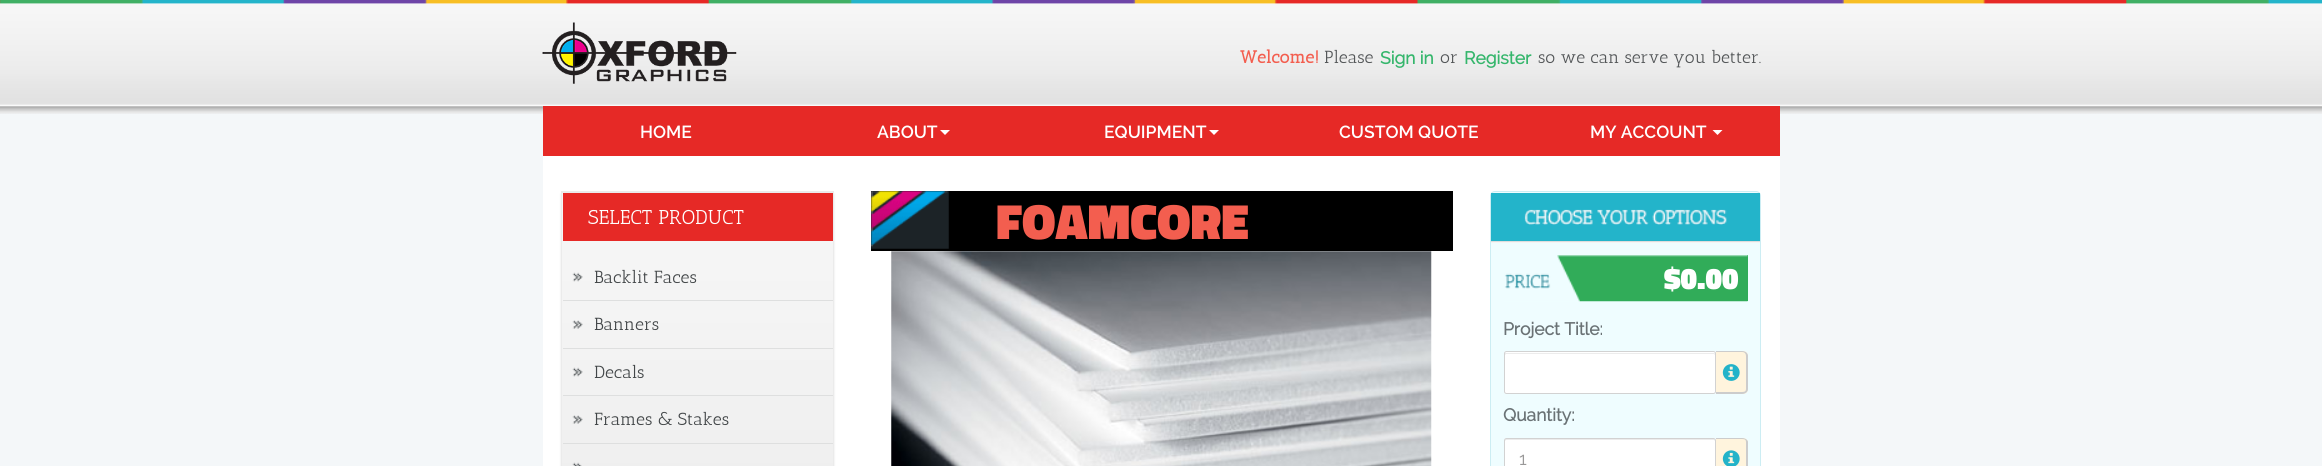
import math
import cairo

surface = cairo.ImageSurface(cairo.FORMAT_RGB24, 2322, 466)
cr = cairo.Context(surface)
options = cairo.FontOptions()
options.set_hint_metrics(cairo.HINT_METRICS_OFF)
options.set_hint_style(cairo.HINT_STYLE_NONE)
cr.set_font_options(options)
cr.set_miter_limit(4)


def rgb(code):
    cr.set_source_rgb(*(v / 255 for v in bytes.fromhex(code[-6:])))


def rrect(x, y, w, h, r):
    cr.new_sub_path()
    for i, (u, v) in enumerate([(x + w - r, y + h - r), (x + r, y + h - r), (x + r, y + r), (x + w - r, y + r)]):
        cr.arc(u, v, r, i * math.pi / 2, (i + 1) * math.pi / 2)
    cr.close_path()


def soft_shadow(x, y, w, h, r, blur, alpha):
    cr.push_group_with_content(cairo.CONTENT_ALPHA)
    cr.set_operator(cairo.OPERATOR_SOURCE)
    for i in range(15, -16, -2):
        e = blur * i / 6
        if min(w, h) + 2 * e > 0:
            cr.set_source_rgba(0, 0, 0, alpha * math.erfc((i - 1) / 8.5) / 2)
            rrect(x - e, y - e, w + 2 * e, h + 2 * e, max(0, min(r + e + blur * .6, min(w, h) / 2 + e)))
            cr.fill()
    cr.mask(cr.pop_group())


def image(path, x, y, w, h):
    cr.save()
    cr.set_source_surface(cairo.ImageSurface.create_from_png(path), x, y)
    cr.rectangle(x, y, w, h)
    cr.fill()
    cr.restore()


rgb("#ffffff")
cr.paint()
image("img/1.png", 0, 0, 2322, 4)
rgb("#f4f7f9")
cr.rectangle(0, 113, 2322, 353)
cr.fill()
image("img/2.png", 0, 3, 2322, 111)
cr.set_source_rgba(0.969, 0.969, 0.969, 0.25)
cr.rectangle(0, 3, 2322, 1)
cr.fill()
image("img/3.png", 542, 22, 195, 62)
rgb("#e62926")
cr.rectangle(543, 106, 1237, 50)
cr.fill()
rgb("#ffffff")
cr.new_path()
cr.move_to(940, 130)
cr.line_to(950, 130)
cr.line_to(945, 135)
cr.close_path()
cr.fill()
cr.new_path()
cr.move_to(1209, 130)
cr.line_to(1219, 130)
cr.line_to(1214, 135)
cr.close_path()
cr.fill()
cr.new_path()
cr.move_to(1712.5, 130)
cr.line_to(1722.5, 130)
cr.line_to(1717.5, 135)
cr.close_path()
cr.fill()
cr.rectangle(543, 156, 1237, 310)
cr.fill()
rgb("#e5e5e5")
soft_shadow(561, 194, 273, 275, 0, 1, 1)
rgb("#e1e1e1")
cr.rectangle(562, 192, 271, 1)
cr.fill()
image("img/4.png", 562, 192, 271, 274)
cr.rectangle(561.5, 191.5, 272, 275)
rgb("#ebebeb")
cr.set_line_width(1)
cr.stroke()
rgb("#e62926")
cr.rectangle(563, 193, 270, 48)
cr.fill()
image("img/5.png", 572, 272, 11, 10)
rgb("#dedfdf")
cr.rectangle(563, 300, 270, 1)
cr.fill()
image("img/6.png", 572, 320, 11, 9)
cr.rectangle(563, 348, 270, 1)
cr.fill()
image("img/7.png", 572, 367, 11, 10)
cr.rectangle(563, 395, 270, 1)
cr.fill()
image("img/8.png", 572, 415, 11, 9)
cr.rectangle(563, 443, 270, 1)
cr.fill()
image("img/9.png", 572, 462, 10, 4)
rgb("#000000")
cr.rectangle(871, 191, 582, 60)
cr.fill()
image("img/10.png", 871, 191, 78, 58)
image("img/11.png", 891, 251, 541, 215)
rgb("#effdff")
rrect(1490.5, 191.5, 270, 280, 4.5)
cr.fill_preserve()
rgb("#ccedf3")
cr.stroke()
for x, y, w, h, color in [
    (1491, 242, 269, 1, "#f5f5f5"),
    (1491, 241, 269, 1, "#dddddd"),
    (1491, 193, 269, 48, "#23b4ca"),
]:
    rgb(color)
    cr.rectangle(x, y, w, h)
    cr.fill()
image("img/12.png", 1524, 209, 203, 16)
rgb("#31ac59")
cr.rectangle(1747, 255, 1, 46)
cr.fill()
image("img/13.png", 1504, 255, 244, 47)
rgb("#ffffff")
rrect(1504, 351, 212, 43, 2.5)
cr.fill()
rgb("#ececec")
cr.new_path()
cr.move_to(1506, 354)
cr.line_to(1714, 354)
cr.line_to(1715, 355)
cr.curve_to(1715, 354, 1715, 353, 1714, 353)
cr.line_to(1506, 353)
cr.line_to(1505, 353)
cr.line_to(1505, 355)
cr.close_path()
cr.fill()
rrect(1504.5, 351.5, 211, 42, 2)
rgb("#d2d2d2")
cr.stroke()
rgb("#fff4dd")
cr.new_path()
cr.move_to(1716, 351)
cr.line_to(1743, 351)
cr.curve_to(1746, 351, 1748, 353, 1748, 356)
cr.line_to(1748, 389)
cr.curve_to(1748, 392, 1746, 394, 1743, 394)
cr.line_to(1716, 394)
cr.close_path()
cr.fill()
rgb("#cccccc")
cr.set_fill_rule(cairo.FILL_RULE_EVEN_ODD)
cr.new_path()
cr.move_to(1716, 351)
cr.line_to(1742, 351)
cr.curve_to(1745, 351, 1748, 353, 1748, 356)
cr.line_to(1748, 389)
cr.curve_to(1748, 392, 1745, 394, 1742, 394)
cr.line_to(1716, 394)
cr.close_path()
cr.move_to(1716, 352)
cr.line_to(1742, 352)
cr.curve_to(1745, 352, 1746, 354, 1746, 356)
cr.line_to(1746, 389)
cr.curve_to(1746, 391, 1745, 392, 1742, 392)
cr.line_to(1716, 392)
cr.close_path()
cr.fill()
image("img/14.png", 1722, 364, 18, 17)
rgb("#ffffff")
rrect(1504, 438, 212, 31, 2.5)
cr.fill()
rgb("#ececec")
cr.set_fill_rule(cairo.FILL_RULE_WINDING)
cr.new_path()
cr.move_to(1506, 440)
cr.line_to(1714, 440)
cr.line_to(1715, 441)
cr.curve_to(1715, 440, 1715, 439, 1714, 439)
cr.line_to(1506, 439)
cr.line_to(1505, 439)
cr.line_to(1505, 441)
cr.close_path()
cr.fill()
rrect(1504.5, 438.5, 211, 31, 2)
rgb("#d2d2d2")
cr.stroke()
rgb("#fff4dd")
cr.new_path()
cr.move_to(1716, 438)
cr.line_to(1743, 438)
cr.curve_to(1746, 438, 1748, 440, 1748, 443)
cr.line_to(1748, 466)
cr.curve_to(1748, 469, 1746, 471, 1743, 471)
cr.line_to(1716, 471)
cr.close_path()
cr.fill()
rgb("#cccccc")
cr.set_fill_rule(cairo.FILL_RULE_EVEN_ODD)
cr.new_path()
cr.move_to(1716, 438)
cr.line_to(1742, 438)
cr.curve_to(1745, 438, 1748, 440, 1748, 442)
cr.line_to(1748, 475)
cr.curve_to(1748, 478, 1745, 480, 1742, 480)
cr.line_to(1716, 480)
cr.close_path()
cr.move_to(1716, 439)
cr.line_to(1742, 439)
cr.curve_to(1745, 439, 1746, 440, 1746, 442)
cr.line_to(1746, 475)
cr.curve_to(1746, 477, 1745, 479, 1742, 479)
cr.line_to(1716, 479)
cr.close_path()
cr.fill()
image("img/15.png", 1722, 450, 18, 16)
cr.select_font_face("Antic Slab", cairo.FONT_SLANT_NORMAL, cairo.FONT_WEIGHT_BOLD)
cr.set_font_size(17.5)
rgb("#f35e4f")
cr.move_to(1240, 63)
cr.show_text("Welcome!")
cr.select_font_face("Antic Slab")
rgb("#525557")
cr.move_to(1324, 63)
cr.show_text("Please")
cr.select_font_face("Raleway", cairo.FONT_SLANT_NORMAL, cairo.FONT_WEIGHT_BOLD)
rgb("#35b66c")
cr.move_to(1380, 64)
cr.show_text("Sign in")
cr.select_font_face("Antic Slab")
rgb("#525557")
cr.move_to(1440, 63)
cr.show_text("or")
cr.select_font_face("Raleway", cairo.FONT_SLANT_NORMAL, cairo.FONT_WEIGHT_BOLD)
rgb("#35b66c")
cr.move_to(1464, 64)
cr.show_text("Register")
cr.select_font_face("Antic Slab")
rgb("#525557")
cr.move_to(1538, 63)
cr.show_text("so we can serve you better.")
cr.select_font_face("Raleway SemiBold")
rgb("#ffffff")
for x, y, s in [
    (640, 138, "HOME"),
    (877, 138, "ABOUT"),
    (1104, 138, "EQUIPMENT"),
    (1339, 138, "CUSTOM QUOTE"),
    (1590, 138, "MY ACCOUNT"),
]:
    cr.move_to(x, y)
    cr.show_text(s)
cr.select_font_face("Antic Slab")
cr.set_font_size(20)
cr.move_to(588, 224)
cr.show_text("SELECT PRODUCT")
cr.set_font_size(17.5)
rgb("#424648")
for x, y, s in [
    (594, 283, "Backlit Faces"),
    (594, 330, "Banners"),
    (594, 378, "Decals"),
    (594, 425, "Frames & Stakes"),
]:
    cr.move_to(x, y)
    cr.show_text(s)
cr.select_font_face("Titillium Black")
cr.set_font_size(50)
rgb("#f35e4f")
cr.move_to(996, 239)
cr.show_text("FOAMCORE")
cr.set_font_size(30)
rgb("#ffffff")
cr.move_to(1664, 289)
cr.show_text("$0.00")
cr.select_font_face("Raleway", cairo.FONT_SLANT_NORMAL, cairo.FONT_WEIGHT_BOLD)
cr.set_font_size(17.5)
rgb("#6a7275")
cr.move_to(1503, 335)
cr.show_text("Project Title:")
cr.move_to(1503, 421)
cr.show_text("Quantity:")
cr.select_font_face("Raleway")
cr.set_font_size(18)
rgb("#999898")
cr.move_to(1519, 465)
cr.show_text("1")
surface.write_to_png("page.png")
